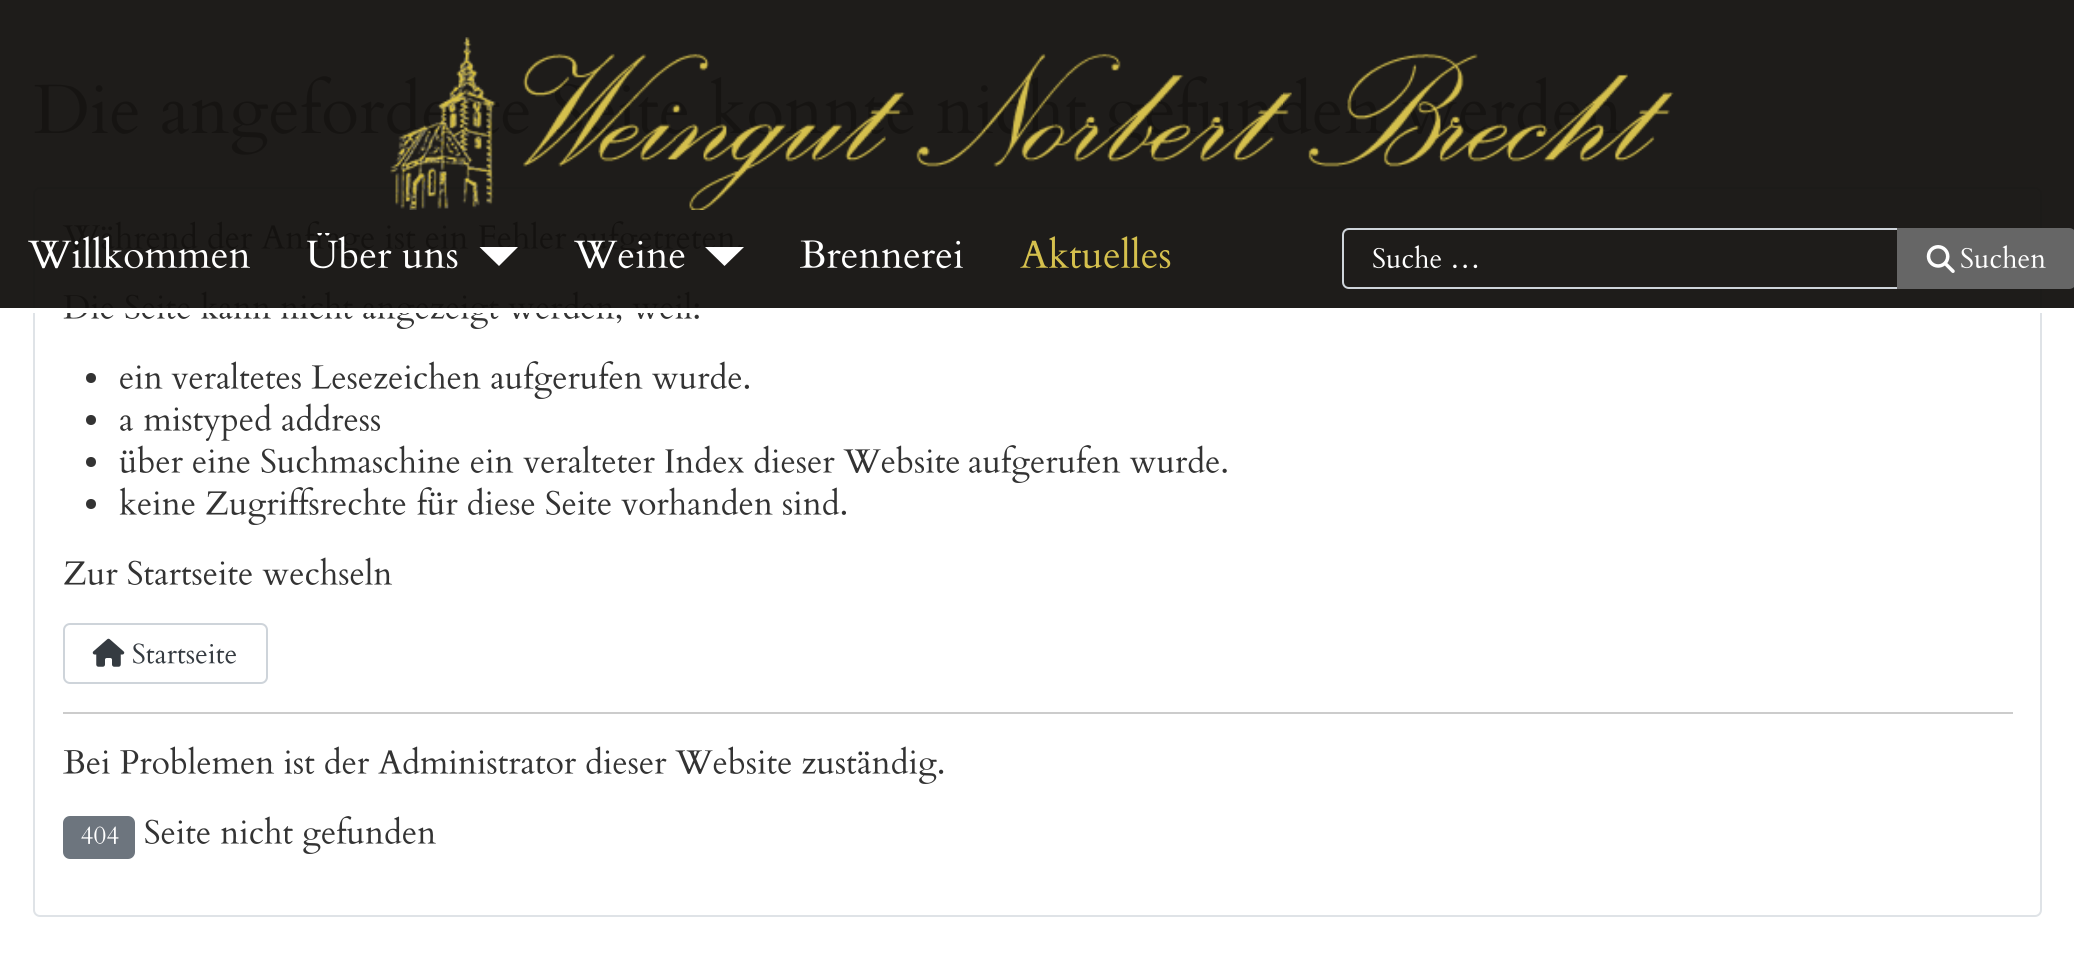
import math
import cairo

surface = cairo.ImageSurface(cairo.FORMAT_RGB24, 2074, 972)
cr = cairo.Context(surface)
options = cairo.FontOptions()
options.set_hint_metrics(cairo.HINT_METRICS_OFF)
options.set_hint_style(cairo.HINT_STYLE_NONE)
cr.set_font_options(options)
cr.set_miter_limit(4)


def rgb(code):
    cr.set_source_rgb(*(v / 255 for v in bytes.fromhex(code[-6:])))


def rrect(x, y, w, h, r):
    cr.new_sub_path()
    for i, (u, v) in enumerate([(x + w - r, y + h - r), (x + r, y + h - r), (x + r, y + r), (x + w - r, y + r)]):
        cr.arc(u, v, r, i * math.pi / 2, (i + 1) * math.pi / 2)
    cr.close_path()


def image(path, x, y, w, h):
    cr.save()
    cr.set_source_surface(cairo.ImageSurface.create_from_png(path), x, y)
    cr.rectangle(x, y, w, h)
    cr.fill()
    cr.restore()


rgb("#ffffff")
cr.paint()
image("img/10.png", 34, 76, 1602, 79)
rrect(34, 188, 2007, 728, 6)
rgb("#dfe3e7")
cr.stroke()
image("img/11.png", 62, 221, 681, 38)
image("img/12.png", 63, 291, 636, 38)
cr.set_source_rgba(0.078, 0.067, 0.059, 0.95)
cr.rectangle(0, 0, 2074, 308)
cr.fill()
rgb("#ffffff")
cr.rectangle(33, 308, 2009, 5)
cr.fill()
image("img/1.png", 390, 37, 1284, 173)
image("img/2.png", 28, 236, 222, 33)
image("img/3.png", 306, 233, 152, 36)
cr.new_path()
cr.move_to(479.5, 247)
cr.line_to(518, 247)
cr.line_to(499, 266)
cr.close_path()
cr.fill()
image("img/4.png", 574, 240, 111, 29)
cr.new_path()
cr.move_to(705, 247)
cr.line_to(744, 247)
cr.line_to(724.5, 266)
cr.close_path()
cr.fill()
image("img/5.png", 800, 240, 163, 29)
image("img/6.png", 1020, 236, 151, 33)
cr.new_path()
cr.move_to(1349, 229)
cr.line_to(1898, 229)
cr.line_to(1898, 288)
cr.line_to(1349, 288)
cr.curve_to(1345.5, 288, 1343, 285.5, 1343, 282)
cr.line_to(1343, 235)
cr.curve_to(1343, 231.5, 1345.5, 229, 1349, 229)
cr.close_path()
rgb("#ced4da")
cr.stroke()
image("img/7.png", 1373, 245, 105, 24)
rgb("#666666")
cr.new_path()
cr.move_to(1898, 229)
cr.line_to(2069, 229)
cr.curve_to(2072.5, 229, 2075, 231.5, 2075, 235)
cr.line_to(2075, 282)
cr.curve_to(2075, 285.5, 2072.5, 288, 2069, 288)
cr.line_to(1898, 288)
cr.close_path()
cr.fill_preserve()
cr.stroke()
image("img/8.png", 1926, 245, 29, 28)
image("img/9.png", 1961, 245, 85, 24)
rgb("#333333")
cr.arc(91, 378, 5, 0, 2 * math.pi)
cr.fill()
image("img/13.png", 120, 365, 43, 24)
image("img/14.png", 171, 361, 310, 28)
image("img/15.png", 491, 361, 258, 38)
cr.arc(91, 420, 5, 0, 2 * math.pi)
cr.fill()
image("img/16.png", 120, 415, 14, 16)
image("img/17.png", 144, 403, 237, 38)
cr.arc(91, 462, 5, 0, 2 * math.pi)
cr.fill()
image("img/18.png", 119, 445, 395, 28)
image("img/19.png", 523, 445, 436, 28)
image("img/20.png", 969, 445, 258, 38)
cr.arc(91, 504, 5, 0, 2 * math.pi)
cr.fill()
image("img/21.png", 119, 487, 287, 38)
image("img/22.png", 417, 487, 429, 28)
image("img/23.png", 64, 557, 329, 28)
rrect(64, 624, 203, 59, 6)
rgb("#ced4da")
cr.stroke()
image("img/24.png", 92, 638, 33, 29)
image("img/25.png", 133, 643, 103, 21)
rgb("#cccccc")
cr.rectangle(63, 712, 1950, 2)
cr.fill()
image("img/26.png", 63, 746, 881, 38)
rgb("#6d757e")
rrect(63, 816, 72, 43, 7)
cr.fill()
image("img/27.png", 81, 826, 38, 18)
image("img/28.png", 145, 816, 291, 38)
surface.write_to_png("page.png")
